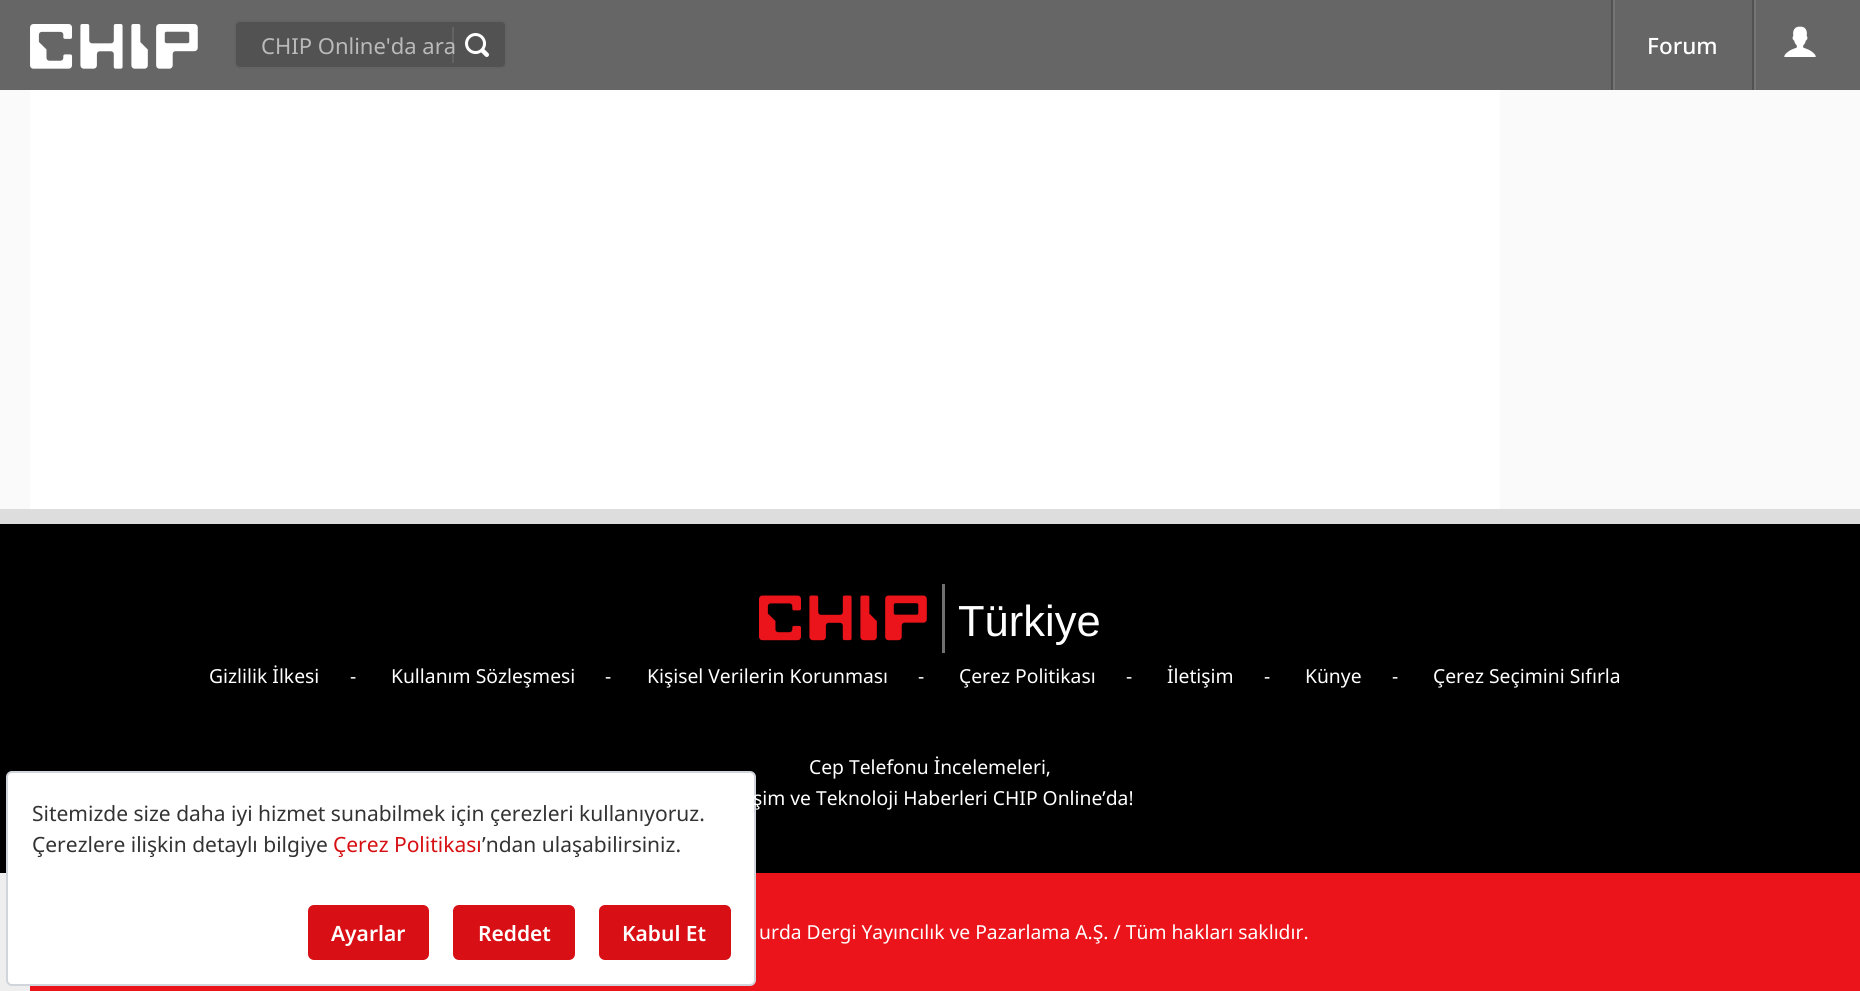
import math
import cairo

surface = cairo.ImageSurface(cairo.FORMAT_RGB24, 1860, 991)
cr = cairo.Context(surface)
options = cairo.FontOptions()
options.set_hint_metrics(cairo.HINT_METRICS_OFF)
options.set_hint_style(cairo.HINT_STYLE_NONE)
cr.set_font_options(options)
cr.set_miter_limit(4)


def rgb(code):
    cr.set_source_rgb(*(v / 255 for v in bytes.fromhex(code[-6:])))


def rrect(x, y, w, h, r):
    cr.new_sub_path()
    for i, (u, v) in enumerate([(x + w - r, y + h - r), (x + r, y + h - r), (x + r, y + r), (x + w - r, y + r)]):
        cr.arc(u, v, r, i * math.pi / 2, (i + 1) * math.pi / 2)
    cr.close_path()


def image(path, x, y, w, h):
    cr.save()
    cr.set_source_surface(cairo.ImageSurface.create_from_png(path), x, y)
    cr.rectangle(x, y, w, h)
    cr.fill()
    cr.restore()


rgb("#fafafa")
cr.paint()
rgb("#666666")
cr.rectangle(0, 0, 1860, 90)
cr.fill()
image("img/1.png", 30, 24, 168, 45)
rgb("#525252")
rrect(234, 20, 273, 49, 6)
cr.fill()
rrect(235, 21, 271, 47, 5)
cr.set_source_rgba(1, 1, 1, 0.1)
cr.stroke()
cr.rectangle(452, 27, 2, 36)
cr.fill()
image("img/2.png", 465, 33, 24, 24)
for x, y, w, h, color in [
    (1613, 0, 2, 90, "#757575"),
    (1611, 0, 2, 90, "#525252"),
    (1754, 0, 2, 90, "#757575"),
    (1752, 0, 2, 90, "#525252"),
]:
    rgb(color)
    cr.rectangle(x, y, w, h)
    cr.fill()
image("img/3.png", 1784, 26, 32, 31)
for x, y, w, h, color in [
    (30, 90, 1470, 419, "#ffffff"),
    (0, 873, 30, 118, "#eeeeee"),
    (0, 509, 1860, 15, "#dddddd"),
    (0, 524, 1860, 349, "#000000"),
]:
    rgb(color)
    cr.rectangle(x, y, w, h)
    cr.fill()
image("img/4.png", 759, 584, 186, 69)
rgb("#eb141b")
cr.rectangle(30, 873, 1830, 118)
cr.fill()
rgb("#ffffff")
rrect(7, 772, 748, 213, 5)
cr.fill_preserve()
rgb("#d1d5db")
cr.stroke()
rgb("#d80f14")
rrect(308, 905, 121, 55, 6)
cr.fill()
rrect(453, 905, 122, 55, 6)
cr.fill()
rrect(599, 905, 132, 55, 6)
cr.fill()
cr.select_font_face("Noto Sans")
cr.set_font_size(22)
rgb("#bababa")
cr.move_to(261, 54)
cr.show_text("CHIP Online'da ara")
cr.select_font_face("Noto Sans Medium")
cr.set_font_size(22.5)
rgb("#ffffff")
cr.move_to(1647, 54)
cr.show_text("Forum")
cr.select_font_face("Liberation Sans")
cr.set_font_size(43.5)
cr.move_to(958, 636)
cr.show_text("Türkiye")
cr.select_font_face("Noto Sans")
cr.set_font_size(19.3)
for x, y, s in [
    (209, 683, "Gizlilik İlkesi"),
    (350, 683, "-"),
    (391, 683, "Kullanım Sözleşmesi"),
    (605, 683, "-"),
    (647, 683, "Kişisel Verilerin Korunması"),
    (918, 683, "-"),
    (959, 683, "Çerez Politikası"),
    (1126, 683, "-"),
    (1167, 683, "İletişim"),
    (1264, 683, "-"),
    (1305, 683, "Künye"),
    (1392, 683, "-"),
    (1433, 683, "Çerez Seçimini Sıfırla"),
    (809, 774, "Cep Telefonu İncelemeleri,"),
    (753, 805, "şim ve Teknoloji Haberleri CHIP Online’da!"),
    (759, 939, "urda Dergi Yayıncılık ve Pazarlama A.Ş. / Tüm hakları saklıdır."),
]:
    cr.move_to(x, y)
    cr.show_text(s)
cr.set_font_size(21)
rgb("#333333")
cr.move_to(32, 821)
cr.show_text("Sitemizde size daha iyi hizmet sunabilmek için çerezleri kullanıyoruz.")
cr.move_to(32, 852)
cr.show_text("Çerezlere ilişkin detaylı bilgiye")
rgb("#d70f12")
cr.move_to(333, 852)
cr.show_text("Çerez Politikası")
rgb("#333333")
cr.move_to(482, 852)
cr.show_text("’ndan ulaşabilirsiniz.")
cr.select_font_face("Noto Sans SemiBold")
rgb("#ffffff")
for x, y, s in [
    (331, 941, "Ayarlar"),
    (478, 941, "Reddet"),
    (622, 941, "Kabul Et"),
]:
    cr.move_to(x, y)
    cr.show_text(s)
surface.write_to_png("page.png")
